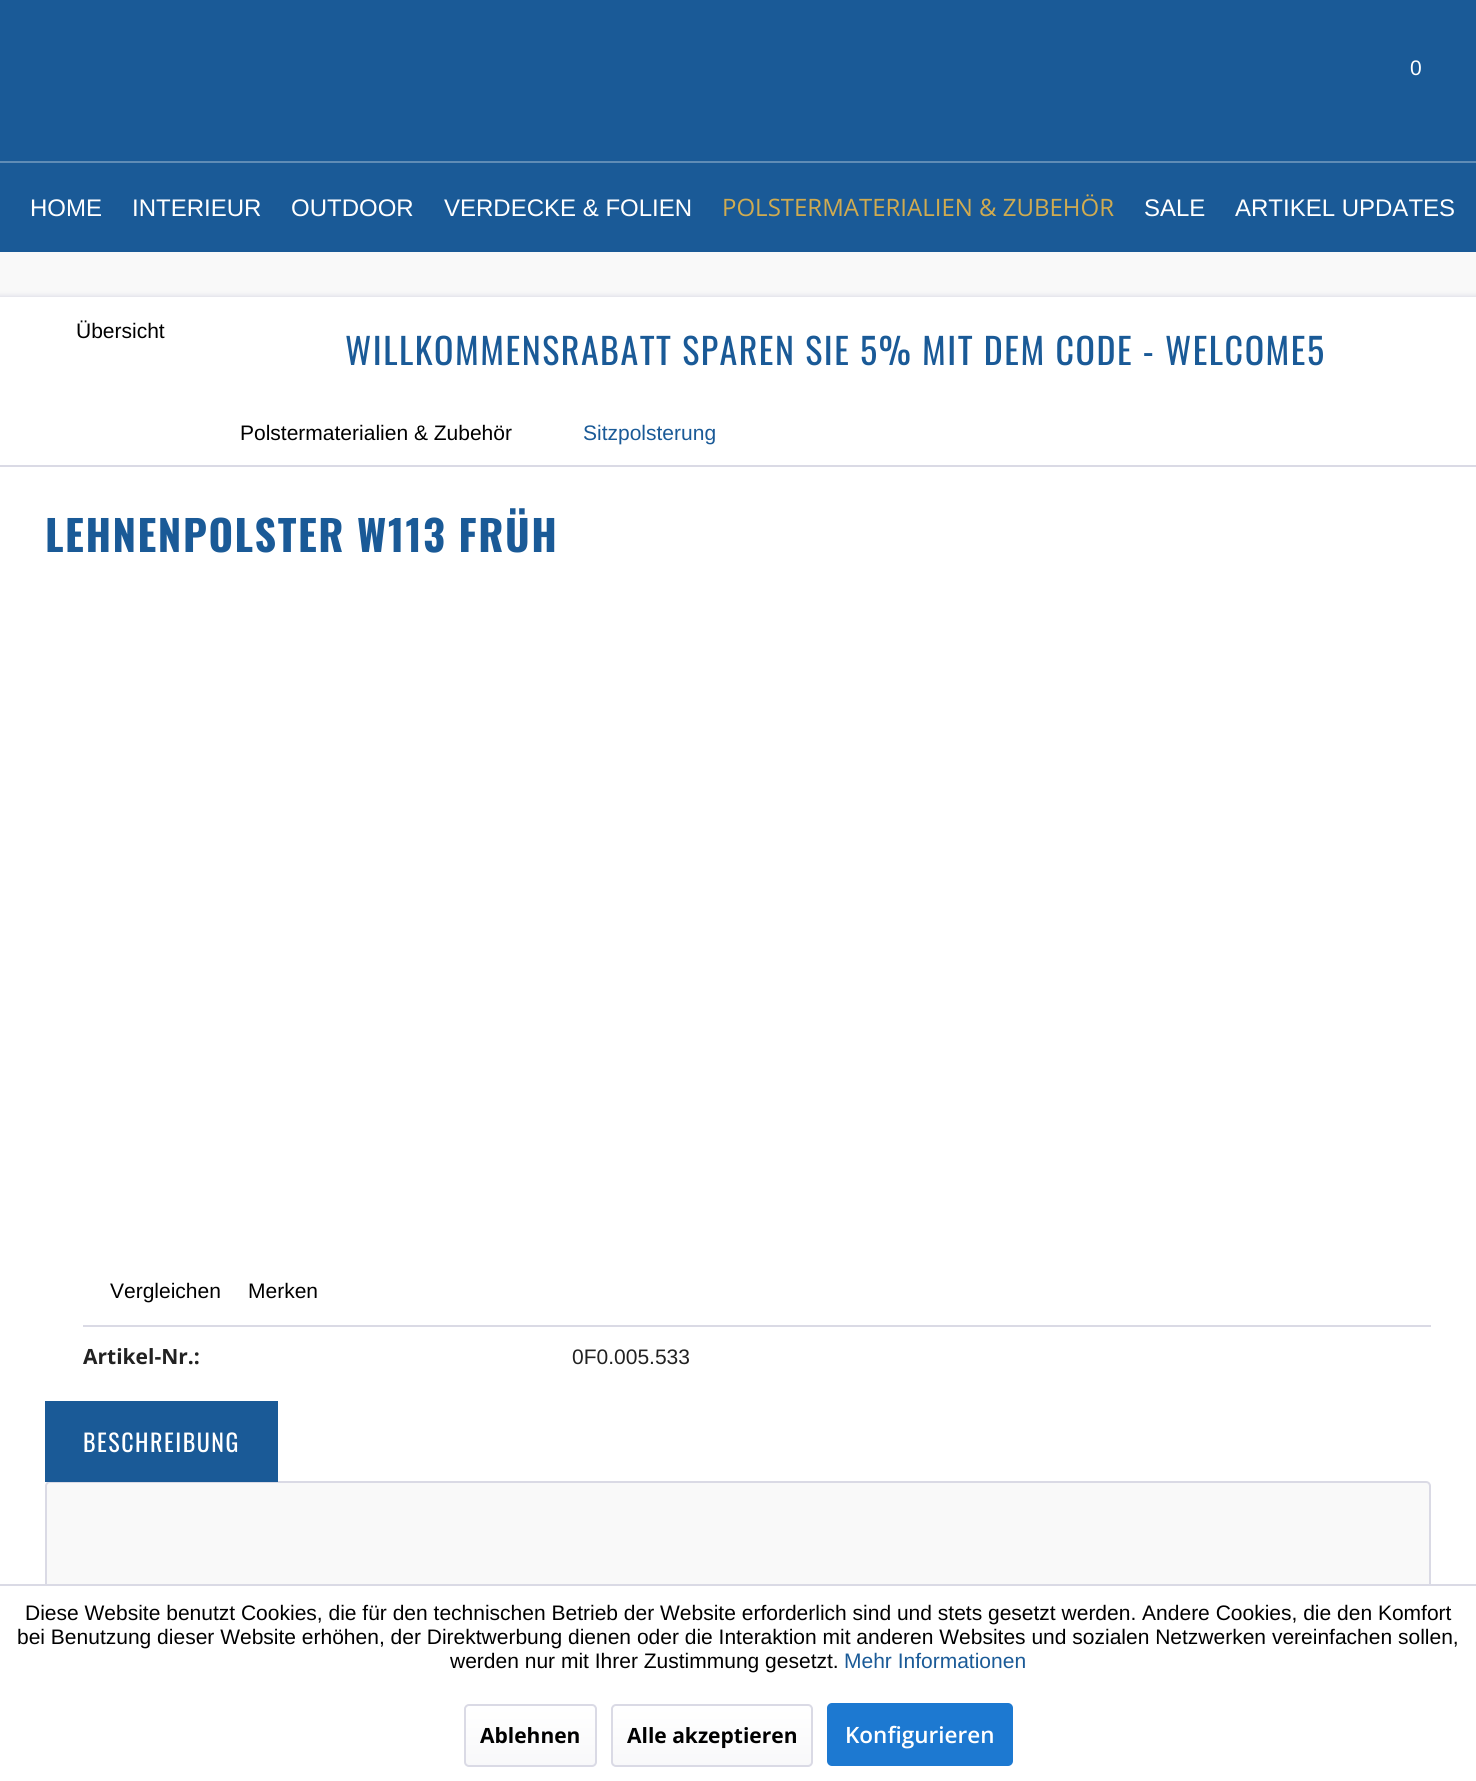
import math
import cairo

surface = cairo.ImageSurface(cairo.FORMAT_RGB24, 1476, 1781)
cr = cairo.Context(surface)
options = cairo.FontOptions()
options.set_hint_metrics(cairo.HINT_METRICS_OFF)
options.set_hint_style(cairo.HINT_STYLE_NONE)
cr.set_font_options(options)
cr.set_miter_limit(4)


def rgb(code):
    cr.set_source_rgb(*(v / 255 for v in bytes.fromhex(code[-6:])))


def tracked(x, y, s, letter, word):
    cr.move_to(x, y)
    for ch in s:
        cr.show_text(ch)
        cr.rel_move_to(letter + word * (ch == ' '), 0)


def rrect(x, y, w, h, r):
    cr.new_sub_path()
    for i, (u, v) in enumerate([(x + w - r, y + h - r), (x + r, y + h - r), (x + r, y + r), (x + w - r, y + r)]):
        cr.arc(u, v, r, i * math.pi / 2, (i + 1) * math.pi / 2)
    cr.close_path()


def soft_shadow(x, y, w, h, r, blur, alpha):
    cr.push_group_with_content(cairo.CONTENT_ALPHA)
    cr.set_operator(cairo.OPERATOR_SOURCE)
    for i in range(15, -16, -2):
        e = blur * i / 6
        if min(w, h) + 2 * e > 0:
            cr.set_source_rgba(0, 0, 0, alpha * math.erfc((i - 1) / 8.5) / 2)
            rrect(x - e, y - e, w + 2 * e, h + 2 * e, max(0, min(r + e + blur * .6, min(w, h) / 2 + e)))
            cr.fill()
    cr.mask(cr.pop_group())


rgb("#f9f9f9")
cr.paint()
for x, y, w, h, color in [
    (0, 0, 1476, 161, "#1a5a97"),
    (0, 163, 1476, 89, "#1a5a97"),
    (0, 161, 1476, 2, "#5f8cb6"),
]:
    rgb(color)
    cr.rectangle(x, y, w, h)
    cr.fill()
rgb("#dadae5")
soft_shadow(-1, 296, 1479, 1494, 0, 3, 1)
for x, y, w, h, color in [
    (0, 297, 1476, 1287, "#ffffff"),
    (0, 465, 1476, 2, "#dadae5"),
    (83, 1325, 1348, 2, "#dadae5"),
]:
    rgb(color)
    cr.rectangle(x, y, w, h)
    cr.fill()
rgb("#f9f9f9")
rrect(46, 1482, 1384, 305, 4)
cr.fill_preserve()
rgb("#dadae5")
cr.stroke()
for x, y, w, h, color in [
    (45, 1401, 233, 81, "#1a5a97"),
    (0, 1586, 1476, 195, "#ffffff"),
    (0, 1584, 1476, 2, "#dadae5"),
]:
    rgb(color)
    cr.rectangle(x, y, w, h)
    cr.fill()
gradient = cairo.LinearGradient(530, 1706, 530, 1766)
gradient.add_color_stop_rgba(0, 1, 1, 1, 1)
gradient.add_color_stop_rgba(1, 0.973, 0.973, 0.98, 1)
cr.set_source(gradient)
rrect(465, 1706, 131, 60, 3)
cr.fill()
rrect(465, 1705, 131, 61, 4)
rgb("#dadae5")
cr.stroke()
gradient = cairo.LinearGradient(712, 1706, 712, 1766)
gradient.add_color_stop_rgba(0, 1, 1, 1, 1)
gradient.add_color_stop_rgba(1, 0.973, 0.973, 0.98, 1)
cr.set_source(gradient)
rrect(612, 1706, 200, 60, 3)
cr.fill()
rrect(612, 1705, 200, 61, 4)
rgb("#dadae5")
cr.stroke()
rgb("#1d79d1")
rrect(827, 1703, 186, 63, 5)
cr.fill()
cr.select_font_face("Liberation Sans")
cr.set_font_size(21)
rgb("#ffffff")
cr.move_to(1410, 75)
cr.show_text("0")
cr.set_font_size(24)
for x, y, s in [
    (30, 216, "HOME"),
    (132, 216, "INTERIEUR"),
    (291, 216, "OUTDOOR"),
    (444, 216, "VERDECKE & FOLIEN"),
]:
    cr.move_to(x, y)
    cr.show_text(s)
cr.select_font_face("Open Sans")
rgb("#d0ab50")
cr.move_to(722, 216)
cr.show_text("POLSTERMATERIALIEN & ZUBEHÖR")
cr.select_font_face("Liberation Sans")
rgb("#ffffff")
cr.move_to(1144, 216)
cr.show_text("SALE")
cr.move_to(1235, 216)
cr.show_text("ARTIKEL UPDATES")
cr.set_font_size(21)
rgb("#000000")
cr.move_to(76, 338)
cr.show_text("Übersicht")
cr.select_font_face("Oswald")
cr.set_font_size(36)
rgb("#1a5a97")
tracked(345, 365, "WILLKOMMENSRABATT SPAREN SIE 5% MIT DEM CODE - WELCOME5", 1.5, 0)
cr.select_font_face("Liberation Sans")
cr.set_font_size(21)
rgb("#000000")
cr.move_to(240, 440)
cr.show_text("Polstermaterialien & Zubehör")
rgb("#1a5a97")
cr.move_to(583, 440)
cr.show_text("Sitzpolsterung")
cr.select_font_face("Oswald", cairo.FONT_SLANT_NORMAL, cairo.FONT_WEIGHT_BOLD)
cr.set_font_size(42)
tracked(45, 552, "LEHNENPOLSTER W113 FRÜH", 1.5, 0)
cr.select_font_face("Liberation Sans")
cr.set_font_size(21)
rgb("#000000")
cr.move_to(110, 1298)
cr.show_text("Vergleichen")
cr.move_to(248, 1298)
cr.show_text("Merken")
cr.select_font_face("Open Sans", cairo.FONT_SLANT_NORMAL, cairo.FONT_WEIGHT_BOLD)
rgb("#222222")
cr.move_to(83, 1364)
cr.show_text("Artikel-Nr.:")
cr.select_font_face("Liberation Sans")
cr.move_to(572, 1364)
cr.show_text("0F0.005.533")
cr.select_font_face("Oswald")
cr.set_font_size(24)
rgb("#ffffff")
tracked(83, 1452, "BESCHREIBUNG", 1.5, 0)
cr.select_font_face("Liberation Sans")
cr.set_font_size(21)
rgb("#000000")
for x, y, s in [
    (25, 1620, "Diese Website benutzt Cookies, die für den technischen Betrieb der Website erforderlich sind und stets gesetzt werden. Andere Cookies, die den Komfort"),
    (17, 1644, "bei Benutzung dieser Website erhöhen, der Direktwerbung dienen oder die Interaktion mit anderen Websites und sozialen Netzwerken vereinfachen sollen,"),
    (450, 1668, "werden nur mit Ihrer Zustimmung gesetzt."),
]:
    cr.move_to(x, y)
    cr.show_text(s)
rgb("#1a5a97")
cr.move_to(844, 1668)
cr.show_text("Mehr Informationen")
cr.select_font_face("Open Sans", cairo.FONT_SLANT_NORMAL, cairo.FONT_WEIGHT_BOLD)
rgb("#000000")
cr.move_to(480, 1743)
cr.show_text("Ablehnen")
cr.move_to(627, 1743)
cr.show_text("Alle akzeptieren")
cr.select_font_face("Open Sans SemiBold")
cr.set_font_size(22.5)
rgb("#ffffff")
cr.move_to(845, 1743)
cr.show_text("Konfigurieren")
surface.write_to_png("page.png")
